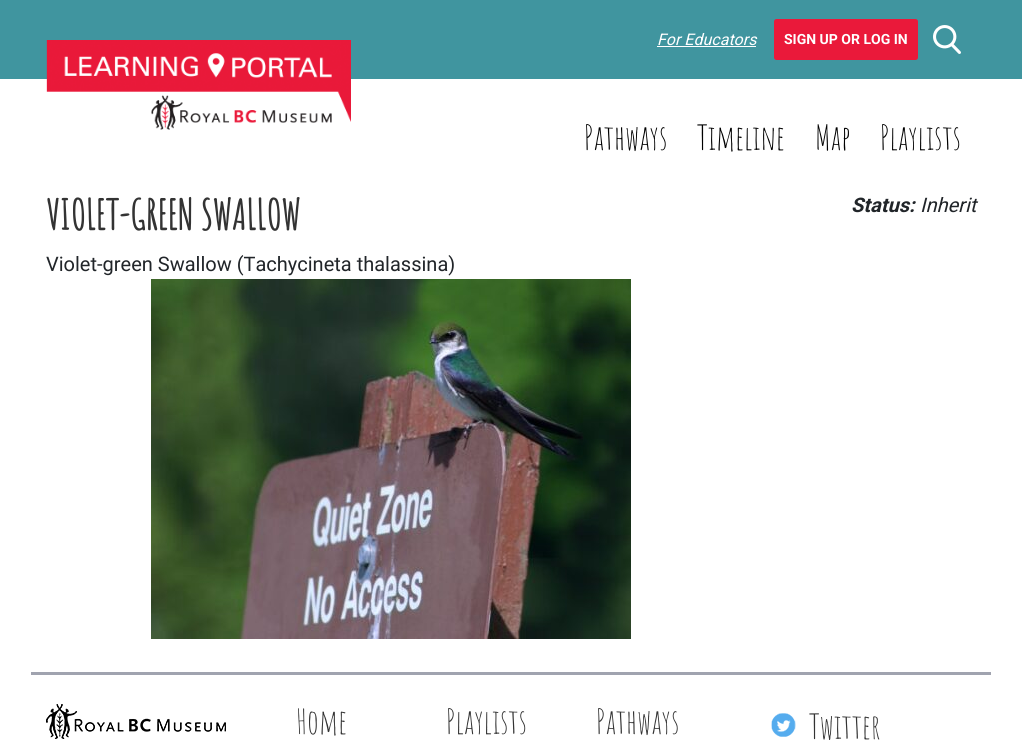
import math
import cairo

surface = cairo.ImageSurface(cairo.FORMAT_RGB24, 1022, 740)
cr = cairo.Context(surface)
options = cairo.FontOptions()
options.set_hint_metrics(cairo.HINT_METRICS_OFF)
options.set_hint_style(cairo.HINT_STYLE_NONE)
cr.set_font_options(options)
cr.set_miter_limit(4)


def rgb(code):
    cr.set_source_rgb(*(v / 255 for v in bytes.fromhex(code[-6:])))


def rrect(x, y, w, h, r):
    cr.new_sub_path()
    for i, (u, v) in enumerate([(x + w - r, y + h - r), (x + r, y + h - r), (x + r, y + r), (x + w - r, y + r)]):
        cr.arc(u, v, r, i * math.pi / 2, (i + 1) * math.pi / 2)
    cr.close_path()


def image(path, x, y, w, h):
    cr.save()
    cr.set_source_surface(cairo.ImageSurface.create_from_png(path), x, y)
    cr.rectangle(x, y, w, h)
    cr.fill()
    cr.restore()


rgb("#ffffff")
cr.paint()
rgb("#40959f")
cr.rectangle(0, 0, 1022, 79)
cr.fill()
image("img/1.png", 46, 40, 305, 90)
rgb("#ffffff")
cr.rectangle(657, 46, 99, 1)
cr.fill()
rgb("#ea193a")
rrect(774, 19, 144, 41, 2.5)
cr.fill()
image("img/2.png", 933, 25, 28, 29)
image("img/3.png", 151, 279, 480, 360)
rgb("#a0a3af")
cr.rectangle(31, 672, 960, 3)
cr.fill()
image("img/4.png", 46, 704, 180, 35)
image("img/5.png", 771, 713, 25, 24)
cr.select_font_face("Roboto", cairo.FONT_SLANT_ITALIC)
cr.set_font_size(16)
rgb("#ffffff")
cr.move_to(657, 45)
cr.show_text("For Educators")
cr.select_font_face("Roboto", cairo.FONT_SLANT_NORMAL, cairo.FONT_WEIGHT_BOLD)
cr.set_font_size(14)
cr.move_to(784, 44)
cr.show_text("SIGN UP OR LOG IN")
cr.select_font_face("Amatic SC")
cr.set_font_size(34)
rgb("#000000")
for x, y, s in [
    (584, 150, "Pathways"),
    (697, 150, "Timeline"),
    (815, 150, "Map"),
    (880, 150, "Playlists"),
]:
    cr.move_to(x, y)
    cr.show_text(s)
cr.select_font_face("Amatic SC", cairo.FONT_SLANT_NORMAL, cairo.FONT_WEIGHT_BOLD)
cr.set_font_size(41)
rgb("#333333")
cr.move_to(46, 230)
cr.show_text("VIOLET-GREEN SWALLOW")
cr.select_font_face("Roboto")
cr.set_font_size(20)
rgb("#212529")
cr.move_to(46, 271)
cr.show_text("Violet-green Swallow (Tachycineta thalassina)")
cr.select_font_face("Roboto", cairo.FONT_SLANT_ITALIC, cairo.FONT_WEIGHT_BOLD)
cr.move_to(851, 212)
cr.show_text("Status:")
cr.select_font_face("Roboto", cairo.FONT_SLANT_ITALIC)
cr.move_to(920, 212)
cr.show_text("Inherit")
cr.select_font_face("Amatic SC")
cr.set_font_size(34)
rgb("#333333")
for x, y, s in [
    (296, 734, "Home"),
    (446, 734, "Playlists"),
    (596, 734, "Pathways"),
    (809, 739, "Twitter"),
]:
    cr.move_to(x, y)
    cr.show_text(s)
surface.write_to_png("page.png")
